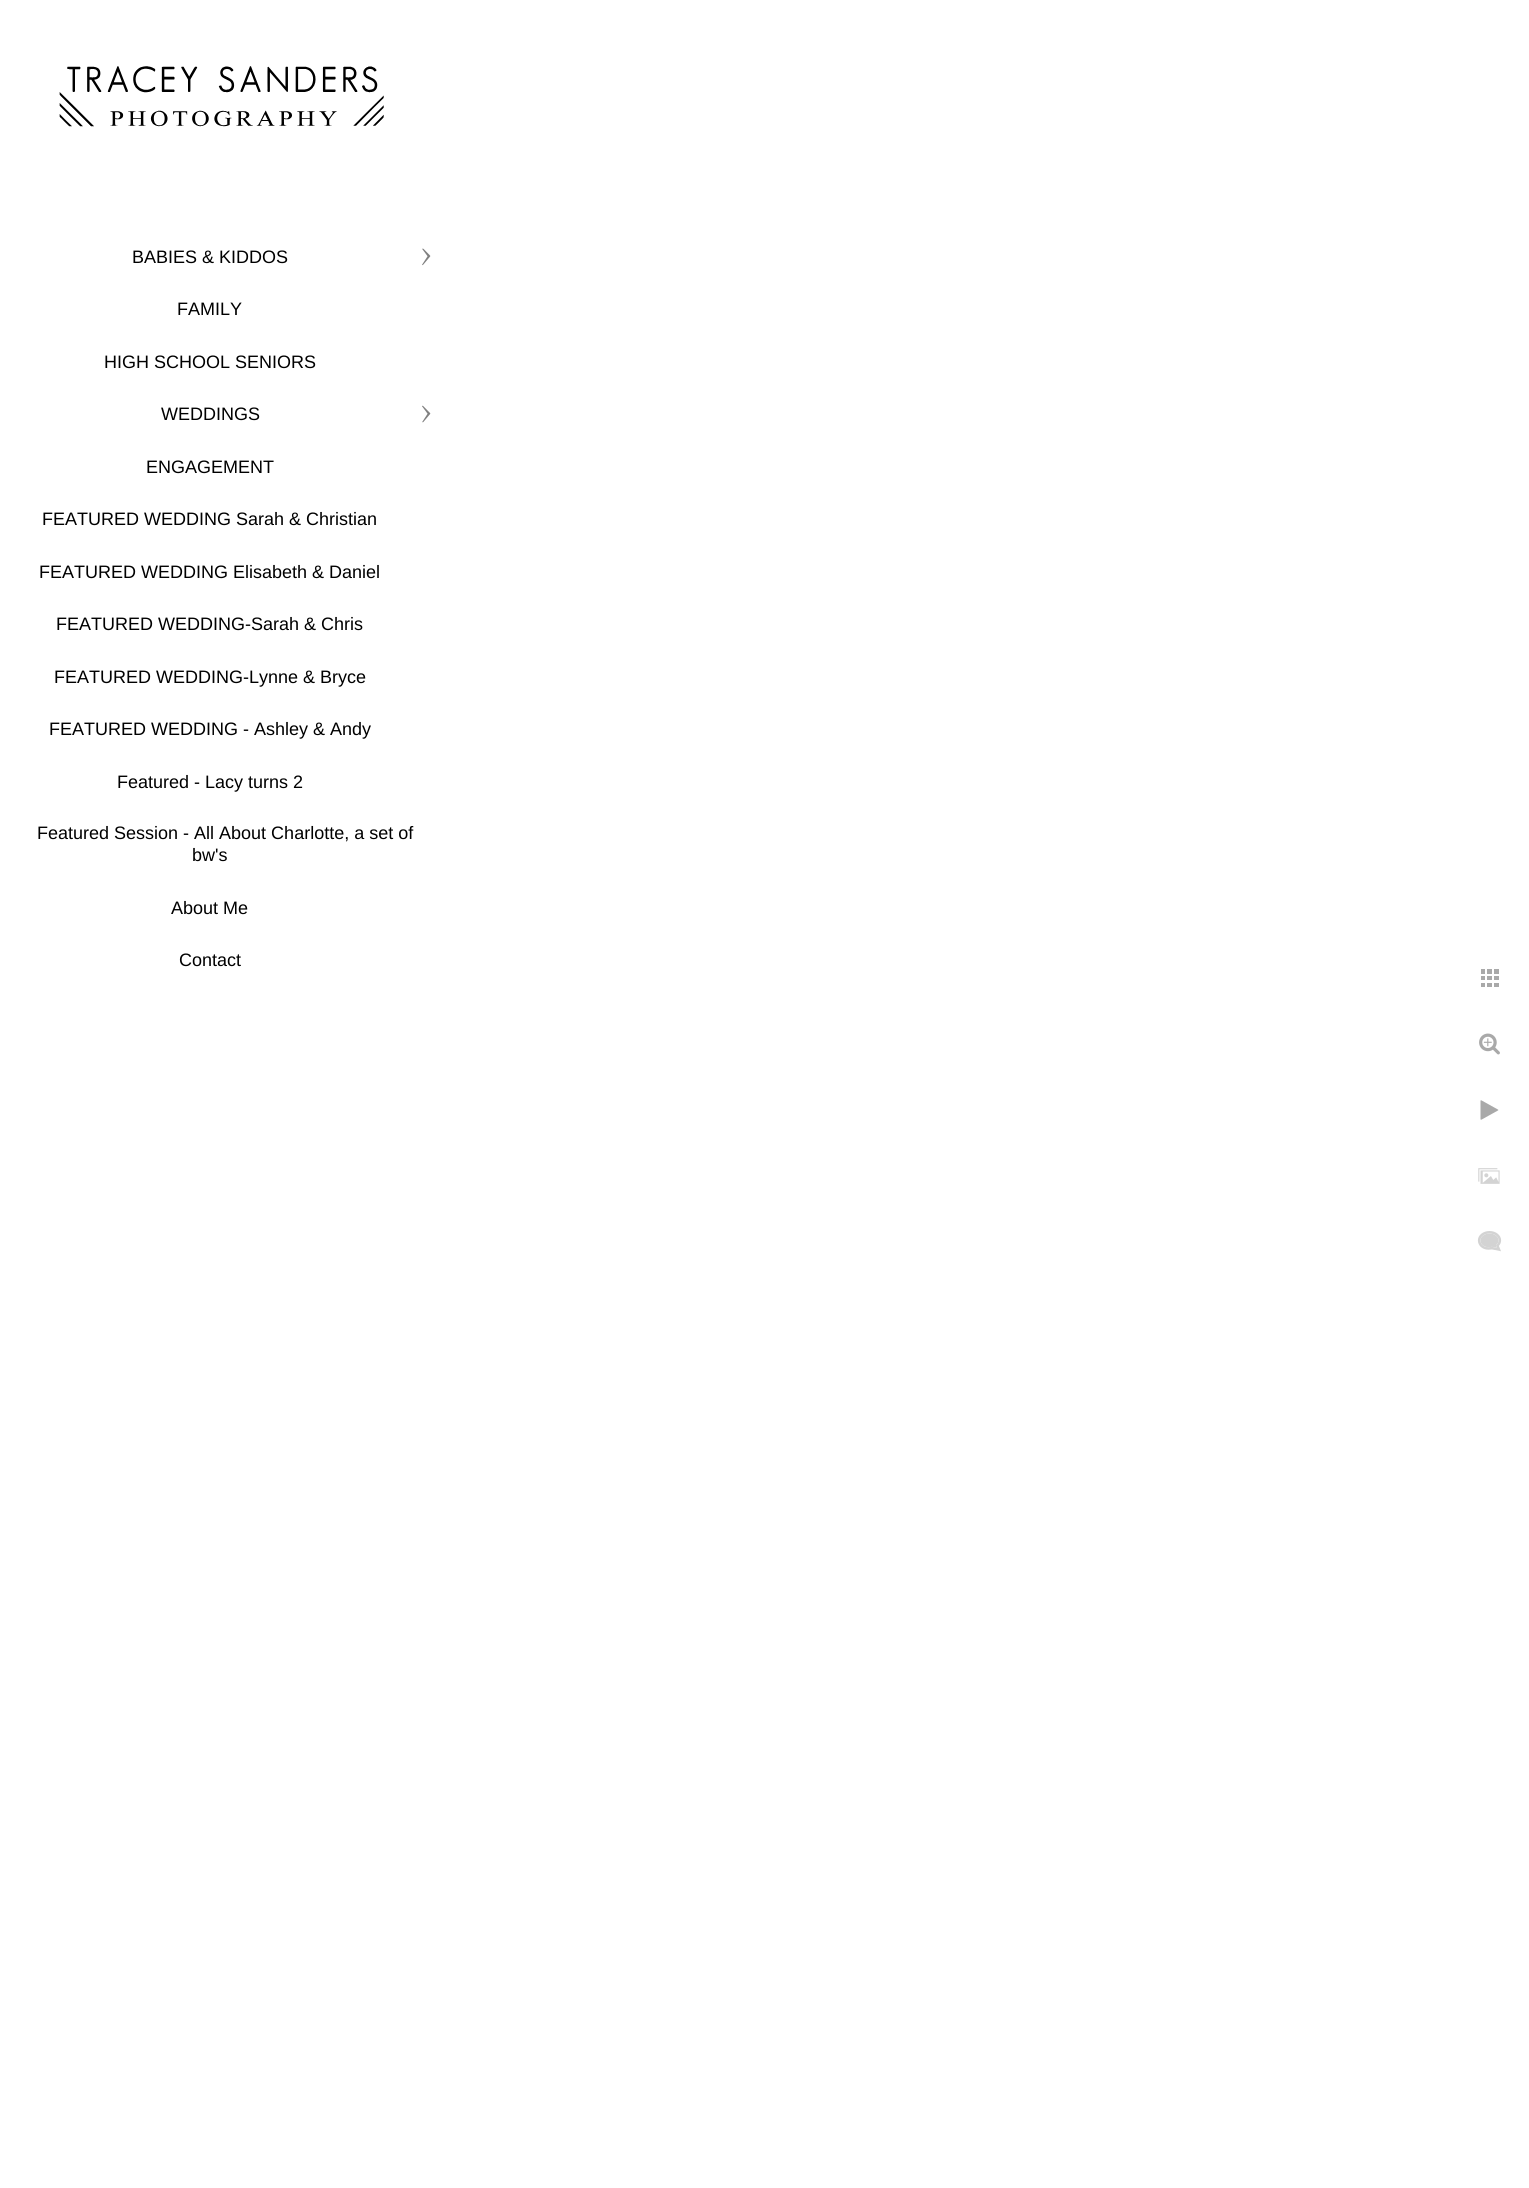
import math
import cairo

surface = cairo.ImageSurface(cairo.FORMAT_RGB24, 1529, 2188)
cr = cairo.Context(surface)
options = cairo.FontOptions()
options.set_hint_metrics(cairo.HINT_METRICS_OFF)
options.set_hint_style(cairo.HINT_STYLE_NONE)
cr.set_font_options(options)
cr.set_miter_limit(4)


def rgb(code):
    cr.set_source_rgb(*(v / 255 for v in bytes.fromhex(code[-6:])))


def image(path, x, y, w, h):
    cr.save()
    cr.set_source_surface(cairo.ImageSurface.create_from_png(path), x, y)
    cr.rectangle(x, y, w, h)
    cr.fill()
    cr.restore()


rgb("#ffffff")
cr.paint()
image("img/1.png", 59, 66, 325, 61)
image("img/2.png", 422, 248, 9, 18)
image("img/3.png", 422, 405, 9, 18)
image("img/4.png", 1481, 969, 18, 18)
image("img/5.png", 1479, 1033, 21, 22)
image("img/6.png", 1480, 1100, 19, 20)
image("img/7.png", 1478, 1168, 22, 16)
image("img/8.png", 1477, 1231, 25, 21)
cr.select_font_face("Liberation Sans")
cr.set_font_size(18)
rgb("#000000")
for x, y, s in [
    (132, 263, "BABIES & KIDDOS"),
    (177, 315, "FAMILY"),
    (104, 368, "HIGH SCHOOL SENIORS"),
    (161, 420, "WEDDINGS"),
    (146, 473, "ENGAGEMENT"),
    (42, 525, "FEATURED WEDDING Sarah & Christian"),
    (39, 578, "FEATURED WEDDING Elisabeth & Daniel"),
    (56, 630, "FEATURED WEDDING-Sarah & Chris"),
    (54, 683, "FEATURED WEDDING-Lynne & Bryce"),
    (49, 735, "FEATURED WEDDING - Ashley & Andy"),
    (117, 788, "Featured - Lacy turns 2"),
    (37, 839, "Featured Session - All About Charlotte, a set of"),
    (192, 861, "bw's"),
    (171, 914, "About Me"),
    (179, 966, "Contact"),
]:
    cr.move_to(x, y)
    cr.show_text(s)
surface.write_to_png("page.png")
